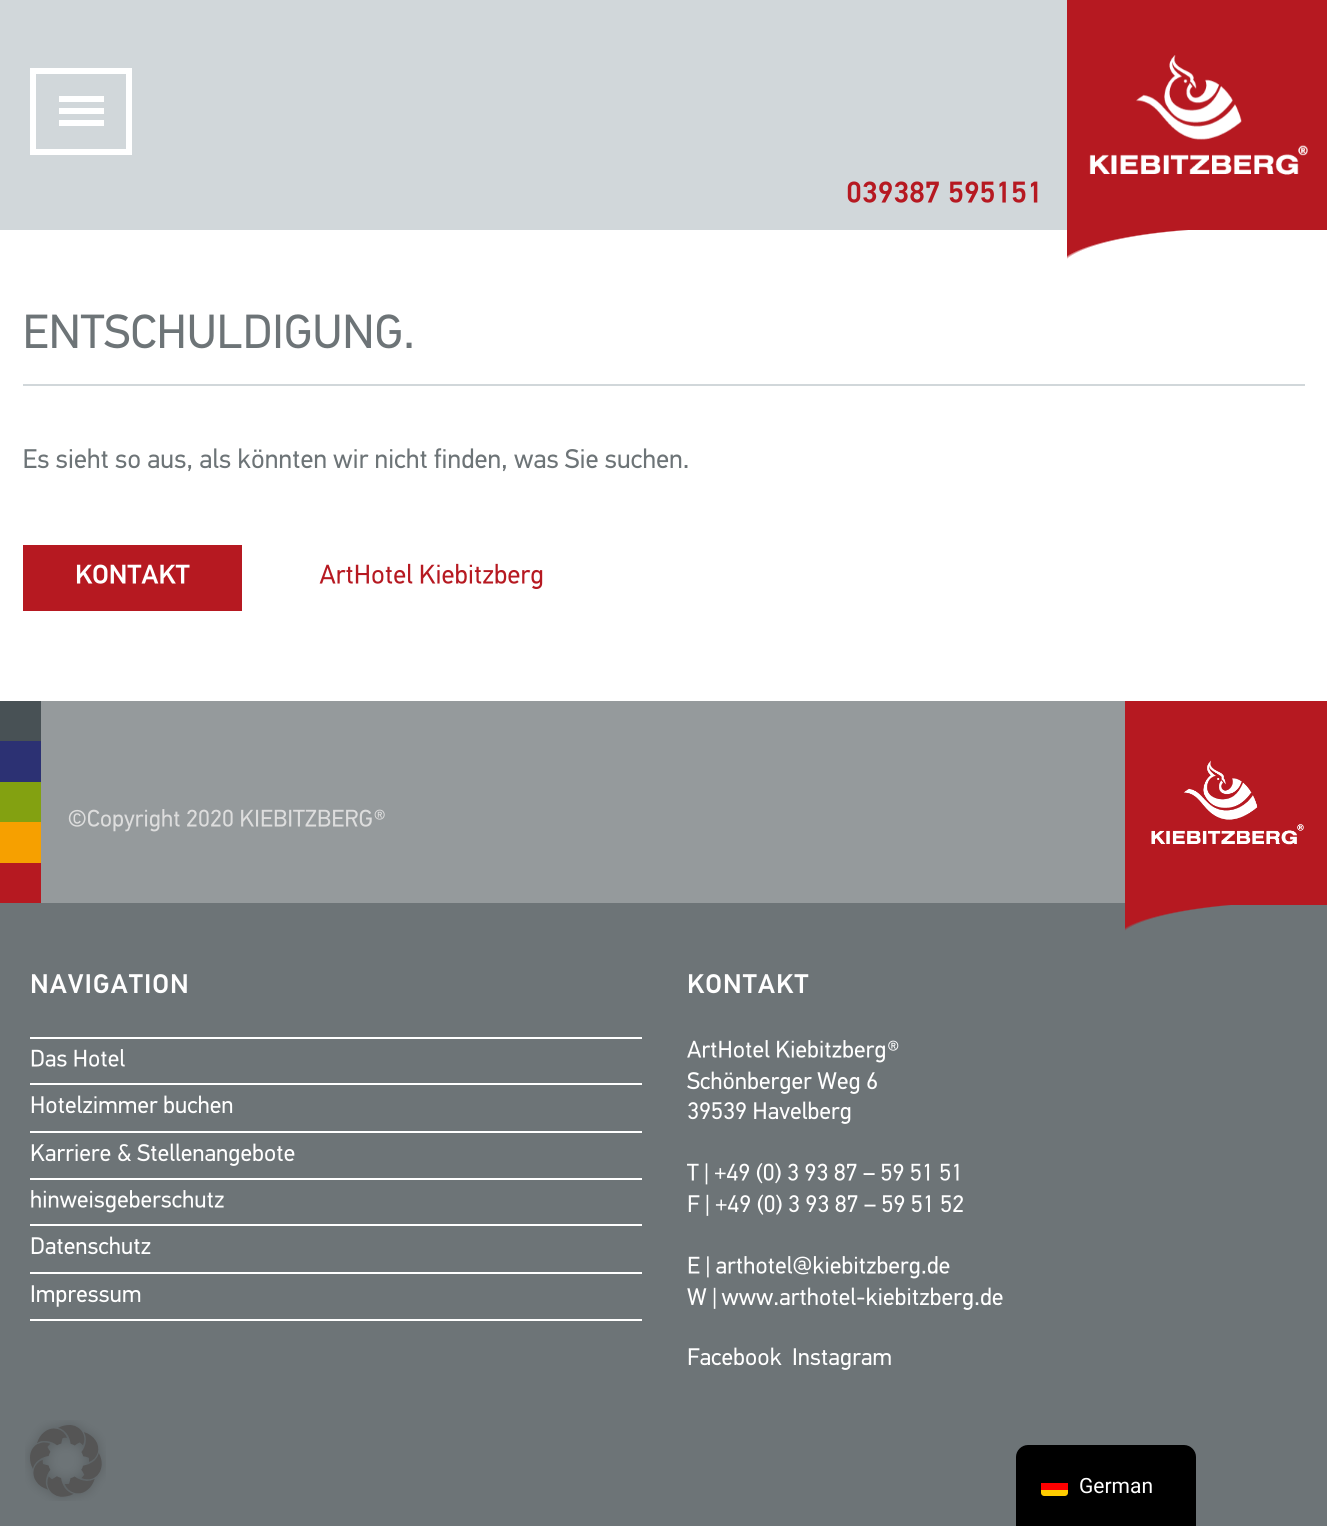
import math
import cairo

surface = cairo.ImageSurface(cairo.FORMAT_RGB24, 1327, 1526)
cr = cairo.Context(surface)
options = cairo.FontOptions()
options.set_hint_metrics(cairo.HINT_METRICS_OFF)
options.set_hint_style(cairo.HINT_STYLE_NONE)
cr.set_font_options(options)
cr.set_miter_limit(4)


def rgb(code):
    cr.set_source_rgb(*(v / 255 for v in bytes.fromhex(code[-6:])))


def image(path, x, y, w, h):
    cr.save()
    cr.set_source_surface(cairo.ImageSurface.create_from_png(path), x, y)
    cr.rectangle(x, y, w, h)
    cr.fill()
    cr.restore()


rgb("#6d7477")
cr.paint()
rgb("#d1d7da")
cr.rectangle(0, 0, 1067, 230)
cr.fill()
cr.rectangle(33, 71, 96, 81)
rgb("#ffffff")
cr.set_line_width(6)
cr.stroke()
for x, y, w, h, color in [
    (59, 96, 45, 6, "#ffffff"),
    (59, 108, 45, 6, "#ffffff"),
    (59, 120, 45, 6, "#ffffff"),
    (1067, 0, 260, 230, "#b61921"),
]:
    rgb(color)
    cr.rectangle(x, y, w, h)
    cr.fill()
image("img/1.png", 1089, 55, 219, 120)
rgb("#ffffff")
cr.rectangle(0, 230, 1327, 471)
cr.fill()
gradient = cairo.RadialGradient(0, 0, 0, 0, 0, 1)
gradient.set_matrix(cairo.Matrix(1 / 255, 0, 0, 1 / 57, -1 * 1247 / 255, -1 * 270 / 57))
gradient.add_color_stop_rgba(0.73, 1, 1, 1, 1)
gradient.add_color_stop_rgba(0.75, 0.714, 0.098, 0.129, 1)
cr.set_source(gradient)
cr.rectangle(1067, 230, 121, 29)
cr.fill()
image("img/2.png", 847, 181, 191, 22)
rgb("#d1d7da")
cr.rectangle(23, 384, 1282, 2)
cr.fill()
image("img/3.png", 26, 314, 386, 35)
image("img/4.png", 24, 448, 664, 24)
rgb("#b61921")
cr.rectangle(23, 545, 219, 66)
cr.fill()
image("img/5.png", 76, 564, 114, 20)
image("img/6.png", 319, 563, 224, 26)
for x, y, w, h, color in [
    (41, 701, 1084, 202, "#959a9c"),
    (0, 701, 41, 40, "#485155"),
    (0, 741, 41, 41, "#2c3173"),
    (0, 782, 41, 40, "#83a111"),
    (0, 822, 41, 41, "#f6a000"),
    (0, 863, 41, 40, "#b61921"),
]:
    rgb(color)
    cr.rectangle(x, y, w, h)
    cr.fill()
image("img/7.png", 68, 809, 317, 23)
cr.rectangle(1125, 701, 202, 204)
cr.fill()
image("img/8.png", 1151, 760, 153, 85)
gradient = cairo.RadialGradient(0, 0, 0, 0, 0, 1)
gradient.set_matrix(cairo.Matrix(1 / 255, 0, 0, 1 / 53, -1 * 1305 / 255, -1 * 941 / 53))
gradient.add_color_stop_rgba(0.73, 0.714, 0.098, 0.129, 0)
gradient.add_color_stop_rgba(0.75, 0.714, 0.098, 0.129, 1)
cr.set_source(gradient)
cr.rectangle(1125, 905, 106, 26)
cr.fill()
image("img/9.png", 31, 974, 156, 20)
rgb("#ffffff")
cr.rectangle(30, 1037, 612, 2)
cr.fill()
image("img/10.png", 31, 1049, 94, 18)
cr.rectangle(30, 1083, 612, 2)
cr.fill()
image("img/11.png", 31, 1095, 202, 19)
cr.rectangle(30, 1131, 612, 2)
cr.fill()
image("img/12.png", 31, 1143, 264, 23)
cr.rectangle(30, 1178, 612, 2)
cr.fill()
image("img/13.png", 31, 1190, 193, 23)
cr.rectangle(30, 1224, 612, 2)
cr.fill()
image("img/14.png", 31, 1236, 120, 19)
cr.rectangle(30, 1272, 612, 2)
cr.fill()
cr.rectangle(30, 1319, 612, 2)
cr.fill()
image("img/15.png", 31, 1285, 110, 22)
image("img/16.png", 688, 974, 121, 20)
image("img/17.png", 687, 1040, 212, 23)
image("img/18.png", 687, 1071, 190, 23)
image("img/19.png", 688, 1101, 163, 23)
image("img/20.png", 687, 1163, 272, 22)
image("img/21.png", 688, 1194, 275, 22)
image("img/22.png", 688, 1256, 21, 22)
image("img/23.png", 716, 1256, 234, 23)
image("img/24.png", 687, 1287, 29, 22)
image("img/25.png", 721, 1287, 282, 23)
image("img/26.png", 688, 1347, 94, 19)
image("img/27.png", 793, 1348, 98, 22)
image("img/28.png", 25, 1420, 81, 81)
rgb("#000000")
cr.new_path()
cr.move_to(1028, 1445)
cr.line_to(1184, 1445)
cr.curve_to(1190.5, 1445, 1196, 1450.5, 1196, 1457)
cr.line_to(1196, 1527)
cr.line_to(1016, 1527)
cr.line_to(1016, 1457)
cr.curve_to(1016, 1450.5, 1021.5, 1445, 1028, 1445)
cr.close_path()
cr.fill()
rgb("#ffcc00")
cr.new_path()
cr.move_to(1041, 1490)
cr.line_to(1068, 1490)
cr.line_to(1068, 1493)
cr.curve_to(1068, 1494.5, 1066.5, 1496, 1065, 1496)
cr.line_to(1044, 1496)
cr.curve_to(1042.5, 1496, 1041, 1494.5, 1041, 1493)
cr.close_path()
cr.fill()
rgb("#ff0000")
cr.rectangle(1041, 1483, 27, 7)
cr.fill()
cr.select_font_face("Roboto")
cr.set_font_size(21)
rgb("#ffffff")
cr.move_to(1079, 1493)
cr.show_text("German")
surface.write_to_png("page.png")
